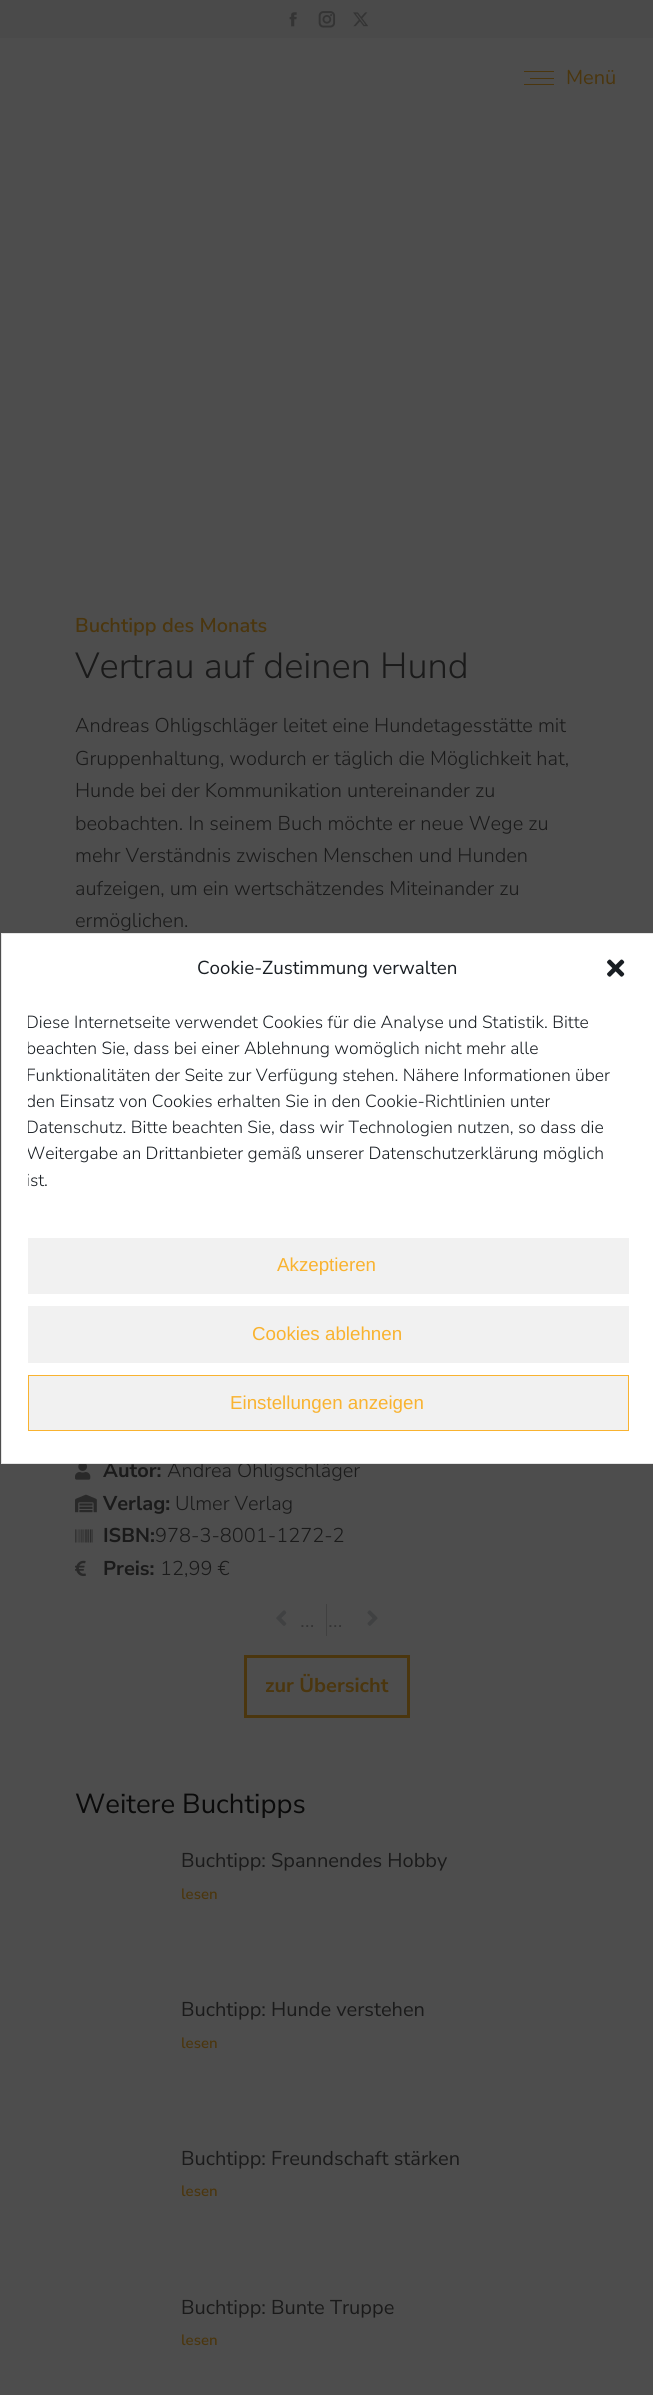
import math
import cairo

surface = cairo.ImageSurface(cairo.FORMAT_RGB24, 653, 2395)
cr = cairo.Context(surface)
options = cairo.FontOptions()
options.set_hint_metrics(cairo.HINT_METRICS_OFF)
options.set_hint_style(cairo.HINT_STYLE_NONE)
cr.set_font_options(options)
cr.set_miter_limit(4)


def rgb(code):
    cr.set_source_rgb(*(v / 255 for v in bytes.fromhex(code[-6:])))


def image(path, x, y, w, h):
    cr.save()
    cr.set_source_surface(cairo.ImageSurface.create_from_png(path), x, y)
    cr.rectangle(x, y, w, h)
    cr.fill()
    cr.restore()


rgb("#4d4d4d")
cr.paint()
rgb("#4a4a4a")
cr.rectangle(0, 0, 653, 38)
cr.fill()
image("img/1.png", 289, 12, 8, 15)
image("img/2.png", 318, 11, 18, 17)
image("img/3.png", 353, 12, 15, 15)
for x, y, w, h, color in [
    (524, 71, 30, 1, "#4b360e"),
    (530, 78, 24, 1, "#4b360e"),
    (524, 84, 30, 1, "#4b360e"),
]:
    rgb(color)
    cr.rectangle(x, y, w, h)
    cr.fill()
image("img/4.png", 75, 1464, 16, 16)
image("img/5.png", 75, 1494, 22, 19)
image("img/6.png", 75, 1529, 18, 14)
image("img/7.png", 75, 1560, 11, 17)
image("img/8.png", 276, 1610, 11, 16)
rgb("#404040")
cr.rectangle(326, 1604, 1, 32)
cr.fill()
image("img/9.png", 367, 1610, 11, 16)
cr.rectangle(245.5, 1656.5, 163, 60)
rgb("#4b360e")
cr.set_line_width(3)
cr.stroke()
cr.select_font_face("Nunito")
cr.set_font_size(20)
cr.move_to(566, 84)
cr.show_text("Menü")
cr.select_font_face("Nunito Sans SemiBold")
cr.move_to(75, 632)
cr.show_text("Buchtipp des Monats")
cr.select_font_face("Nunito Sans Light")
cr.set_font_size(36.25)
rgb("#1a1a1a")
cr.move_to(75, 678)
cr.show_text("Vertrau auf deinen Hund")
cr.set_font_size(20)
for x, y, s in [
    (75, 732, "Andreas Ohligschläger leitet eine Hundetagesstätte mit"),
    (75, 765, "Gruppenhaltung, wodurch er täglich die Möglichkeit hat,"),
    (75, 797, "Hunde bei der Kommunikation untereinander zu"),
    (75, 830, "beobachten. In seinem Buch möchte er neue Wege zu"),
    (75, 862, "mehr Verständnis zwischen Menschen und Hunden"),
    (75, 895, "aufzeigen, um ein wertschätzendes Miteinander zu"),
    (75, 927, "ermöglichen."),
]:
    cr.move_to(x, y)
    cr.show_text(s)
cr.select_font_face("Nunito Sans", cairo.FONT_SLANT_NORMAL, cairo.FONT_WEIGHT_BOLD)
cr.move_to(103, 1477)
cr.show_text("Autor:")
cr.select_font_face("Nunito Sans Light")
cr.move_to(167, 1477)
cr.show_text("Andrea Ohligschläger")
cr.select_font_face("Nunito Sans", cairo.FONT_SLANT_NORMAL, cairo.FONT_WEIGHT_BOLD)
cr.move_to(103, 1510)
cr.show_text("Verlag:")
cr.select_font_face("Nunito Sans Light")
cr.move_to(175, 1510)
cr.show_text("Ulmer Verlag")
cr.select_font_face("Nunito Sans", cairo.FONT_SLANT_NORMAL, cairo.FONT_WEIGHT_BOLD)
cr.move_to(103, 1542)
cr.show_text("ISBN:")
cr.select_font_face("Nunito Sans Light")
cr.move_to(155, 1542)
cr.show_text("978-3-8001-1272-2")
cr.select_font_face("Nunito Sans", cairo.FONT_SLANT_NORMAL, cairo.FONT_WEIGHT_BOLD)
cr.move_to(103, 1575)
cr.show_text("Preis:")
cr.select_font_face("Nunito Sans Light")
cr.move_to(160, 1575)
cr.show_text("12,99 €")
cr.set_font_size(22)
rgb("#343434")
cr.move_to(300, 1627)
cr.show_text("…")
cr.move_to(328, 1627)
cr.show_text("…")
cr.select_font_face("Nunito Sans", cairo.FONT_SLANT_NORMAL, cairo.FONT_WEIGHT_BOLD)
cr.set_font_size(20)
rgb("#4b360e")
cr.move_to(265, 1692)
cr.show_text("zur Übersicht")
cr.select_font_face("Nunito Sans")
cr.set_font_size(27.5)
rgb("#0a0a0a")
cr.move_to(75, 1813)
cr.show_text("Weitere Buchtipps")
cr.set_font_size(20)
rgb("#1a1a1a")
cr.move_to(181, 1867)
cr.show_text("Buchtipp: Spannendes Hobby")
cr.select_font_face("Nunito Sans SemiBold")
cr.set_font_size(15)
rgb("#4b360e")
cr.move_to(181, 1899)
cr.show_text("lesen")
cr.select_font_face("Nunito Sans")
cr.set_font_size(20)
rgb("#1a1a1a")
cr.move_to(181, 2016)
cr.show_text("Buchtipp: Hunde verstehen")
cr.select_font_face("Nunito Sans SemiBold")
cr.set_font_size(15)
rgb("#4b360e")
cr.move_to(181, 2048)
cr.show_text("lesen")
cr.select_font_face("Nunito Sans")
cr.set_font_size(20)
rgb("#1a1a1a")
cr.move_to(181, 2165)
cr.show_text("Buchtipp: Freundschaft stärken")
cr.select_font_face("Nunito Sans SemiBold")
cr.set_font_size(15)
rgb("#4b360e")
cr.move_to(181, 2196)
cr.show_text("lesen")
cr.select_font_face("Nunito Sans")
cr.set_font_size(20)
rgb("#1a1a1a")
cr.move_to(181, 2314)
cr.show_text("Buchtipp: Bunte Truppe")
cr.select_font_face("Nunito Sans SemiBold")
cr.set_font_size(15)
rgb("#4b360e")
cr.move_to(181, 2345)
cr.show_text("lesen")
rgb("#ffffff")
cr.rectangle(1.5, 933.5, 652, 530)
cr.fill_preserve()
rgb("#e5e5e5")
cr.set_line_width(1)
cr.stroke()
cr.select_font_face("Nunito Sans")
cr.set_font_size(18.75)
rgb("#191e23")
cr.move_to(197, 974)
cr.show_text("Cookie-Zustimmung verwalten")
image("img/10.png", 607, 959, 18, 18)
cr.save()
cr.rectangle(28, 1010, 601, 190)
cr.clip()
cr.select_font_face("Nunito Sans Light")
cr.set_font_size(17.5)
for x, y, s in [
    (26, 1028, "Diese Internetseite verwendet Cookies für die Analyse und Statistik. Bitte"),
    (26, 1054, "beachten Sie, dass bei einer Ablehnung womöglich nicht mehr alle"),
    (26, 1081, "Funktionalitäten der Seite zur Verfügung stehen. Nähere Informationen über"),
    (26, 1107, "den Einsatz von Cookies erhalten Sie in den Cookie-Richtlinien unter"),
    (26, 1133, "Datenschutz. Bitte beachten Sie, dass wir Technologien nutzen, so dass die"),
    (26, 1159, "Weitergabe an Drittanbieter gemäß unserer Datenschutzerklärung möglich"),
    (26, 1186, "ist."),
]:
    cr.move_to(x, y)
    cr.show_text(s)
cr.restore()
rgb("#f1f1f1")
cr.rectangle(28, 1238, 601, 56)
cr.fill()
cr.select_font_face("Liberation Sans")
rgb("#f9b330")
cr.move_to(277, 1271)
cr.show_text("Akzeptieren")
rgb("#f1f1f1")
cr.rectangle(28, 1306, 601, 57)
cr.fill()
rgb("#f9b330")
cr.move_to(252, 1340)
cr.show_text("Cookies ablehnen")
rgb("#f1f1f1")
cr.rectangle(28.5, 1375.5, 600, 55)
cr.fill_preserve()
rgb("#f9b330")
cr.stroke()
cr.move_to(230, 1409)
cr.show_text("Einstellungen anzeigen")
surface.write_to_png("page.png")
